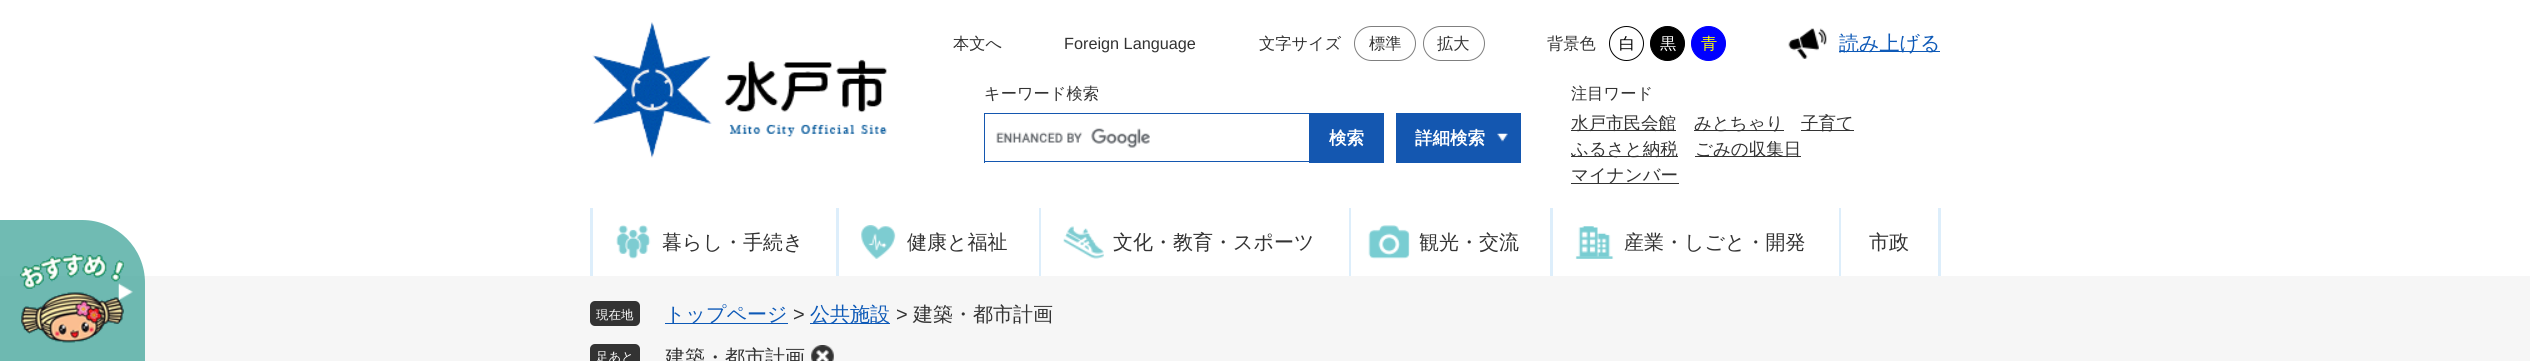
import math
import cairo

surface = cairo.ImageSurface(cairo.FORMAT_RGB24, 2530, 361)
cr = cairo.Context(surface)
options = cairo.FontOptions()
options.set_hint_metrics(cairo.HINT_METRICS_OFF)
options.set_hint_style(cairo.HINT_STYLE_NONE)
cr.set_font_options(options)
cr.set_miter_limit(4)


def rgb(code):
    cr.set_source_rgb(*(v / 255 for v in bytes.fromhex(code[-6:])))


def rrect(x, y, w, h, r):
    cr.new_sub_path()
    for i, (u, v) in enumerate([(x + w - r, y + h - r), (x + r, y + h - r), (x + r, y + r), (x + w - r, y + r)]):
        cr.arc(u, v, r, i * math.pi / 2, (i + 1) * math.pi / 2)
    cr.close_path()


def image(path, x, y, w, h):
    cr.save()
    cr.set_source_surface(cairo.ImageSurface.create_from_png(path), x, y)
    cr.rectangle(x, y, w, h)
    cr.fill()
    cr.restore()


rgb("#ffffff")
cr.paint()
image("img/1.png", 592, 22, 295, 136)
rrect(1354.5, 26.5, 61, 34, 17)
rgb("#7f7f7f")
cr.set_line_width(1)
cr.stroke()
rrect(1423.5, 26.5, 61, 34, 17)
cr.stroke()
cr.arc(1626.5, 43.5, 17, 0, 2 * math.pi)
rgb("#000000")
cr.stroke()
cr.arc(1667.5, 43.5, 17, 0, 2 * math.pi)
cr.fill_preserve()
cr.stroke()
rgb("#0000ff")
cr.arc(1708.5, 43.5, 17, 0, 2 * math.pi)
cr.fill_preserve()
cr.stroke()
image("img/2.png", 1788, 28, 39, 31)
rgb("#0d59b7")
cr.rectangle(1839, 51, 101, 1)
cr.fill()
image("img/3.png", 996, 128, 154, 20)
for x, y, w, h, color in [
    (984, 113, 325, 1, "#1457b0"),
    (984, 161, 325, 1, "#1457b0"),
    (984, 113, 1, 50, "#1457b0"),
    (1309, 113, 75, 50, "#1457b0"),
    (1396, 113, 125, 50, "#1457b0"),
]:
    rgb(color)
    cr.rectangle(x, y, w, h)
    cr.fill()
image("img/4.png", 1497, 133, 11, 9)
for x, y, w, h, color in [
    (1571, 130, 105, 1, "#333333"),
    (1694, 130, 90, 1, "#333333"),
    (1801, 130, 53, 1, "#333333"),
    (1571, 156, 107, 1, "#333333"),
    (1695, 156, 106, 1, "#333333"),
    (1571, 183, 108, 1, "#333333"),
    (0, 276, 2530, 85, "#f6f6f6"),
]:
    rgb(color)
    cr.rectangle(x, y, w, h)
    cr.fill()
cr.set_source_rgba(0.251, 0.643, 0.604, 0.75)
cr.new_path()
cr.move_to(0, 220)
cr.line_to(82, 220)
cr.curve_to(117, 220, 145, 248, 145, 283)
cr.line_to(145, 361)
cr.line_to(0, 361)
cr.close_path()
cr.fill()
image("img/5.png", 19, 253, 105, 90)
image("img/6.png", 118, 283, 15, 17)
rgb("#ddeefb")
cr.rectangle(590, 208, 3, 68)
cr.fill()
image("img/7.png", 616, 225, 35, 34)
cr.rectangle(836, 208, 3, 68)
cr.fill()
image("img/8.png", 861, 225, 35, 34)
cr.rectangle(1039, 208, 2, 68)
cr.fill()
image("img/9.png", 1063, 226, 41, 33)
cr.rectangle(1349, 208, 2, 68)
cr.fill()
image("img/10.png", 1368, 225, 42, 34)
cr.rectangle(1550, 208, 3, 68)
cr.fill()
image("img/11.png", 1575, 226, 39, 33)
cr.rectangle(1938, 208, 3, 68)
cr.fill()
cr.rectangle(1839, 208, 2, 68)
cr.fill()
rgb("#333333")
rrect(590, 301, 50, 25, 5)
cr.fill()
rgb("#0d59b7")
cr.rectangle(665, 323, 123, 1)
cr.fill()
cr.rectangle(810, 323, 80, 1)
cr.fill()
rgb("#333333")
rrect(590, 344, 50, 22, 5)
cr.fill()
image("img/12.png", 811, 345, 23, 16)
cr.select_font_face("WenQuanYi Zen Hei Medium")
cr.set_font_size(16.25)
cr.move_to(953, 49)
cr.show_text("本文へ")
cr.select_font_face("Liberation Sans")
cr.move_to(1064, 49)
cr.show_text("Foreign Language")
cr.select_font_face("WenQuanYi Zen Hei Medium")
for x, y, s in [
    (1259, 49, "文字サイズ"),
    (1369, 49, "標準"),
    (1437, 49, "拡大"),
    (1547, 49, "背景色"),
]:
    cr.move_to(x, y)
    cr.show_text(s)
rgb("#000000")
cr.move_to(1619, 49)
cr.show_text("白")
rgb("#ffffff")
cr.move_to(1660, 49)
cr.show_text("黒")
rgb("#ffff00")
cr.move_to(1701, 49)
cr.show_text("青")
cr.set_font_size(20)
rgb("#0d59b7")
cr.move_to(1839, 50)
cr.show_text("読み上げる")
cr.set_font_size(16.25)
rgb("#333333")
cr.move_to(984, 99)
cr.show_text("キーワード検索")
cr.select_font_face("WenQuanYi Zen Hei", cairo.FONT_SLANT_NORMAL, cairo.FONT_WEIGHT_BOLD)
cr.set_font_size(17.5)
rgb("#ffffff")
cr.move_to(1329, 144)
cr.show_text("検索")
cr.move_to(1415, 144)
cr.show_text("詳細検索")
cr.select_font_face("WenQuanYi Zen Hei Medium")
cr.set_font_size(16.25)
rgb("#333333")
cr.move_to(1571, 99)
cr.show_text("注目ワード")
cr.set_font_size(17.5)
for x, y, s in [
    (1571, 129, "水戸市民会館"),
    (1694, 129, "みとちゃり"),
    (1801, 129, "子育て"),
    (1571, 155, "ふるさと納税"),
    (1695, 155, "ごみの収集日"),
    (1571, 181, "マイナンバー"),
]:
    cr.move_to(x, y)
    cr.show_text(s)
cr.set_font_size(20)
for x, y, s in [
    (662, 249, "暮らし・手続き"),
    (907, 249, "健康と福祉"),
    (1113, 249, "文化・教育・スポーツ"),
    (1419, 249, "観光・交流"),
    (1624, 249, "産業・しごと・開発"),
    (1869, 249, "市政"),
]:
    cr.move_to(x, y)
    cr.show_text(s)
cr.set_font_size(12.5)
rgb("#ffffff")
cr.move_to(596, 319)
cr.show_text("現在地")
cr.set_font_size(20)
rgb("#0d59b7")
cr.move_to(665, 321)
cr.show_text("トップページ")
cr.select_font_face("Liberation Sans")
rgb("#333333")
cr.move_to(793, 321)
cr.show_text(">")
cr.select_font_face("WenQuanYi Zen Hei Medium")
rgb("#0d59b7")
cr.move_to(810, 321)
cr.show_text("公共施設")
cr.select_font_face("Liberation Sans")
rgb("#333333")
cr.move_to(896, 321)
cr.show_text(">")
cr.select_font_face("WenQuanYi Zen Hei Medium")
cr.move_to(913, 321)
cr.show_text("建築・都市計画")
cr.set_font_size(12.5)
rgb("#ffffff")
cr.move_to(596, 361)
cr.show_text("足あと")
cr.set_font_size(20)
rgb("#333333")
cr.move_to(665, 364)
cr.show_text("建築・都市計画")
surface.write_to_png("page.png")
